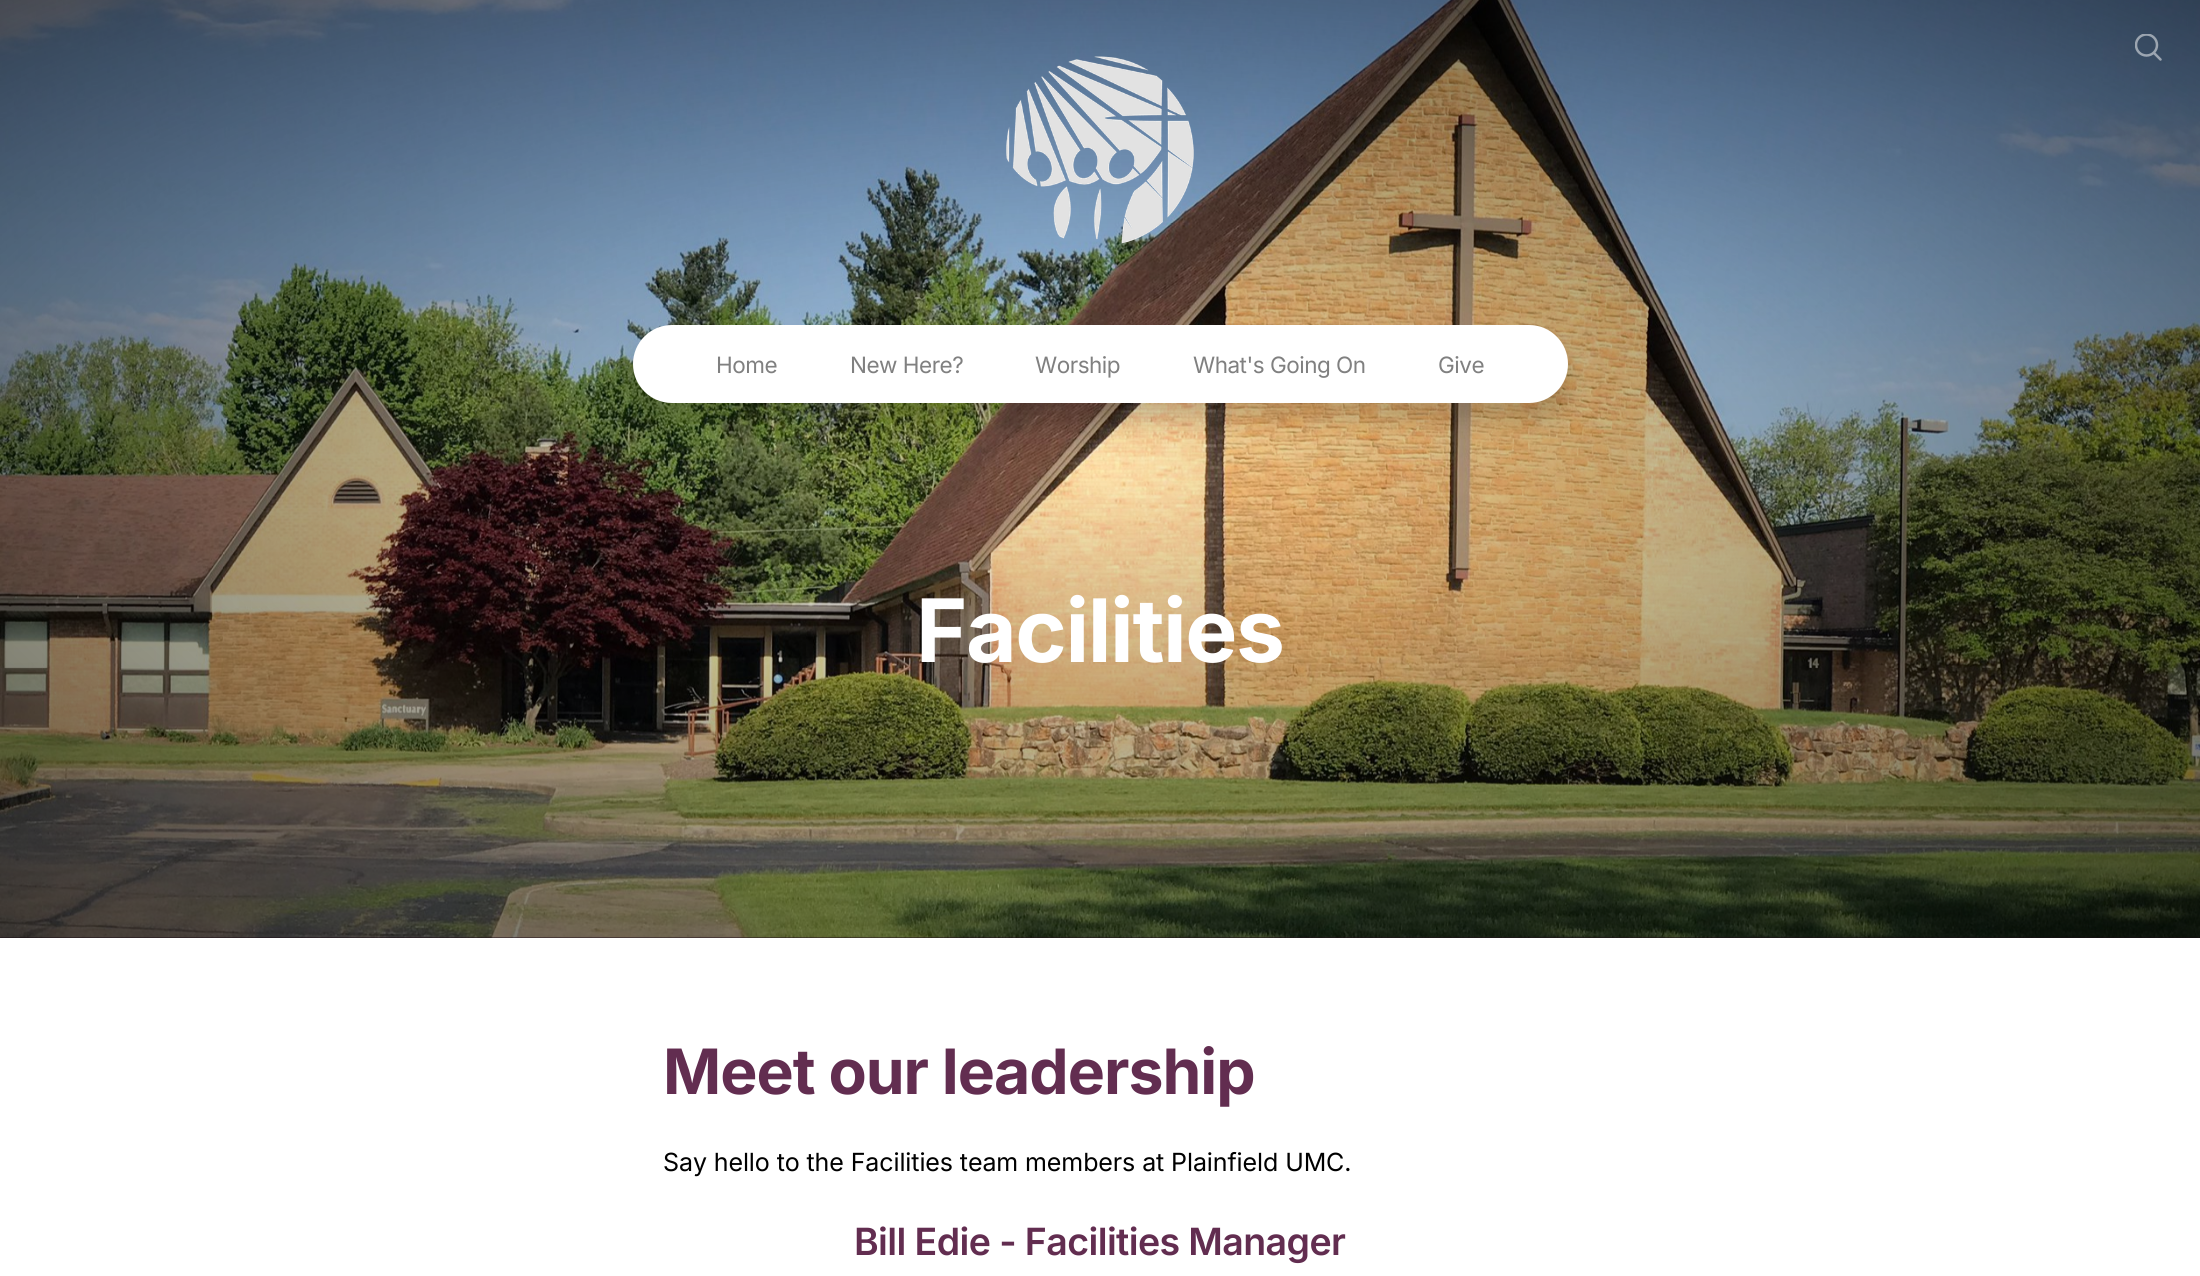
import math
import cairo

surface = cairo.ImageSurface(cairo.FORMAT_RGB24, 2200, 1276)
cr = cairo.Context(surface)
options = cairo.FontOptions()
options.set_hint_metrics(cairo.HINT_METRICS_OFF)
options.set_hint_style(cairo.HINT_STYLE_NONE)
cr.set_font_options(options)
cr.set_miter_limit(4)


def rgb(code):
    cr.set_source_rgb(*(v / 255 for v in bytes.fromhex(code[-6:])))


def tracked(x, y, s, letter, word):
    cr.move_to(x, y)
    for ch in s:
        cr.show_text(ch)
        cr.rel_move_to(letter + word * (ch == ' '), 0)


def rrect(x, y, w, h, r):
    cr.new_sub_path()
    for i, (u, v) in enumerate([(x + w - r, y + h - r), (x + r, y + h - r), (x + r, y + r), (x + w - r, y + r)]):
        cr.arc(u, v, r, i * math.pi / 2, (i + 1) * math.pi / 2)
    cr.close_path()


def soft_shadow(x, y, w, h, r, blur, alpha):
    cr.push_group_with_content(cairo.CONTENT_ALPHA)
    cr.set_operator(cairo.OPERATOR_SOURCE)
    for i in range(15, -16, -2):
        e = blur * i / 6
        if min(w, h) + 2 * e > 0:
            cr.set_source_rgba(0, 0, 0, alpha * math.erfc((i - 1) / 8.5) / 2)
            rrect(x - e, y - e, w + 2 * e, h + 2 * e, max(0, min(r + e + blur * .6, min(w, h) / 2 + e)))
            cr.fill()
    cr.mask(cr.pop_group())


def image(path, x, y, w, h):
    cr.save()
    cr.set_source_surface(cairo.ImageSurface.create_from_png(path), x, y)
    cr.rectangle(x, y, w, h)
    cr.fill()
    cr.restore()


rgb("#ffffff")
cr.paint()
rgb("#401b35")
cr.rectangle(0, 937, 2200, 1)
cr.fill()
image("img/1.png", 0, 0, 2200, 938)
gradient = cairo.RadialGradient(0, 0, 0, 0, 0, 1)
gradient.set_matrix(cairo.Matrix(1 / 1556, 0, 0, 1 / 663, -1 * 1100 / 1556, -1 * 469 / 663))
gradient.add_color_stop_rgba(0, 0, 0, 0, 0)
gradient.add_color_stop_rgba(1, 0, 0, 0, 0.64)
cr.set_source(gradient)
cr.rectangle(0, 0, 2200, 938)
cr.fill()
cr.save()
cr.rectangle(2135, 34, 28, 27)
cr.clip()
cr.arc(2146.5, 45, 10.5, 0, 2 * math.pi)
cr.set_source_rgba(1, 1, 1, 0.5)
cr.set_line_width(2.5)
cr.stroke()
cr.restore()
cr.new_path()
cr.move_to(2154, 53)
cr.line_to(2160.5, 59.5)
rgb("#9ca5b1")
cr.set_line_width(2.5)
cr.set_line_cap(cairo.LINE_CAP_ROUND)
cr.stroke()
image("img/2.png", 1006, 56, 188, 188)
rgb("#000000")
soft_shadow(633, 343, 935, 77, 38.5, 11, 0.16)
rgb("#ffffff")
rrect(633, 325, 935, 78, 39)
cr.fill()
cr.select_font_face("Inter")
cr.set_font_size(22.5)
rgb("#808080")
for x, y, s in [
    (716, 373, "Home"),
    (850, 373, "New Here?"),
    (1035, 373, "Worship"),
    (1193, 373, "What's Going On"),
    (1438, 373, "Give"),
]:
    tracked(x, y, s, -0.5, 0)
cr.select_font_face("Inter", cairo.FONT_SLANT_NORMAL, cairo.FONT_WEIGHT_BOLD)
cr.set_font_size(87.5)
rgb("#ffffff")
tracked(916, 662, "Facilities", -1.4, 0)
cr.set_font_size(62.5)
rgb("#622d50")
tracked(663, 1094, "Meet our leadership", -1, 0)
cr.select_font_face("Inter")
cr.set_font_size(25)
rgb("#000000")
tracked(663, 1171, "Say hello to the Facilities team members at Plainfield UMC.", -0.1, 0)
cr.select_font_face("Inter SemiBold")
cr.set_font_size(37.5)
rgb("#622d50")
tracked(854, 1255, "Bill Edie - Facilities Manager", -0.6, 0)
surface.write_to_png("page.png")
